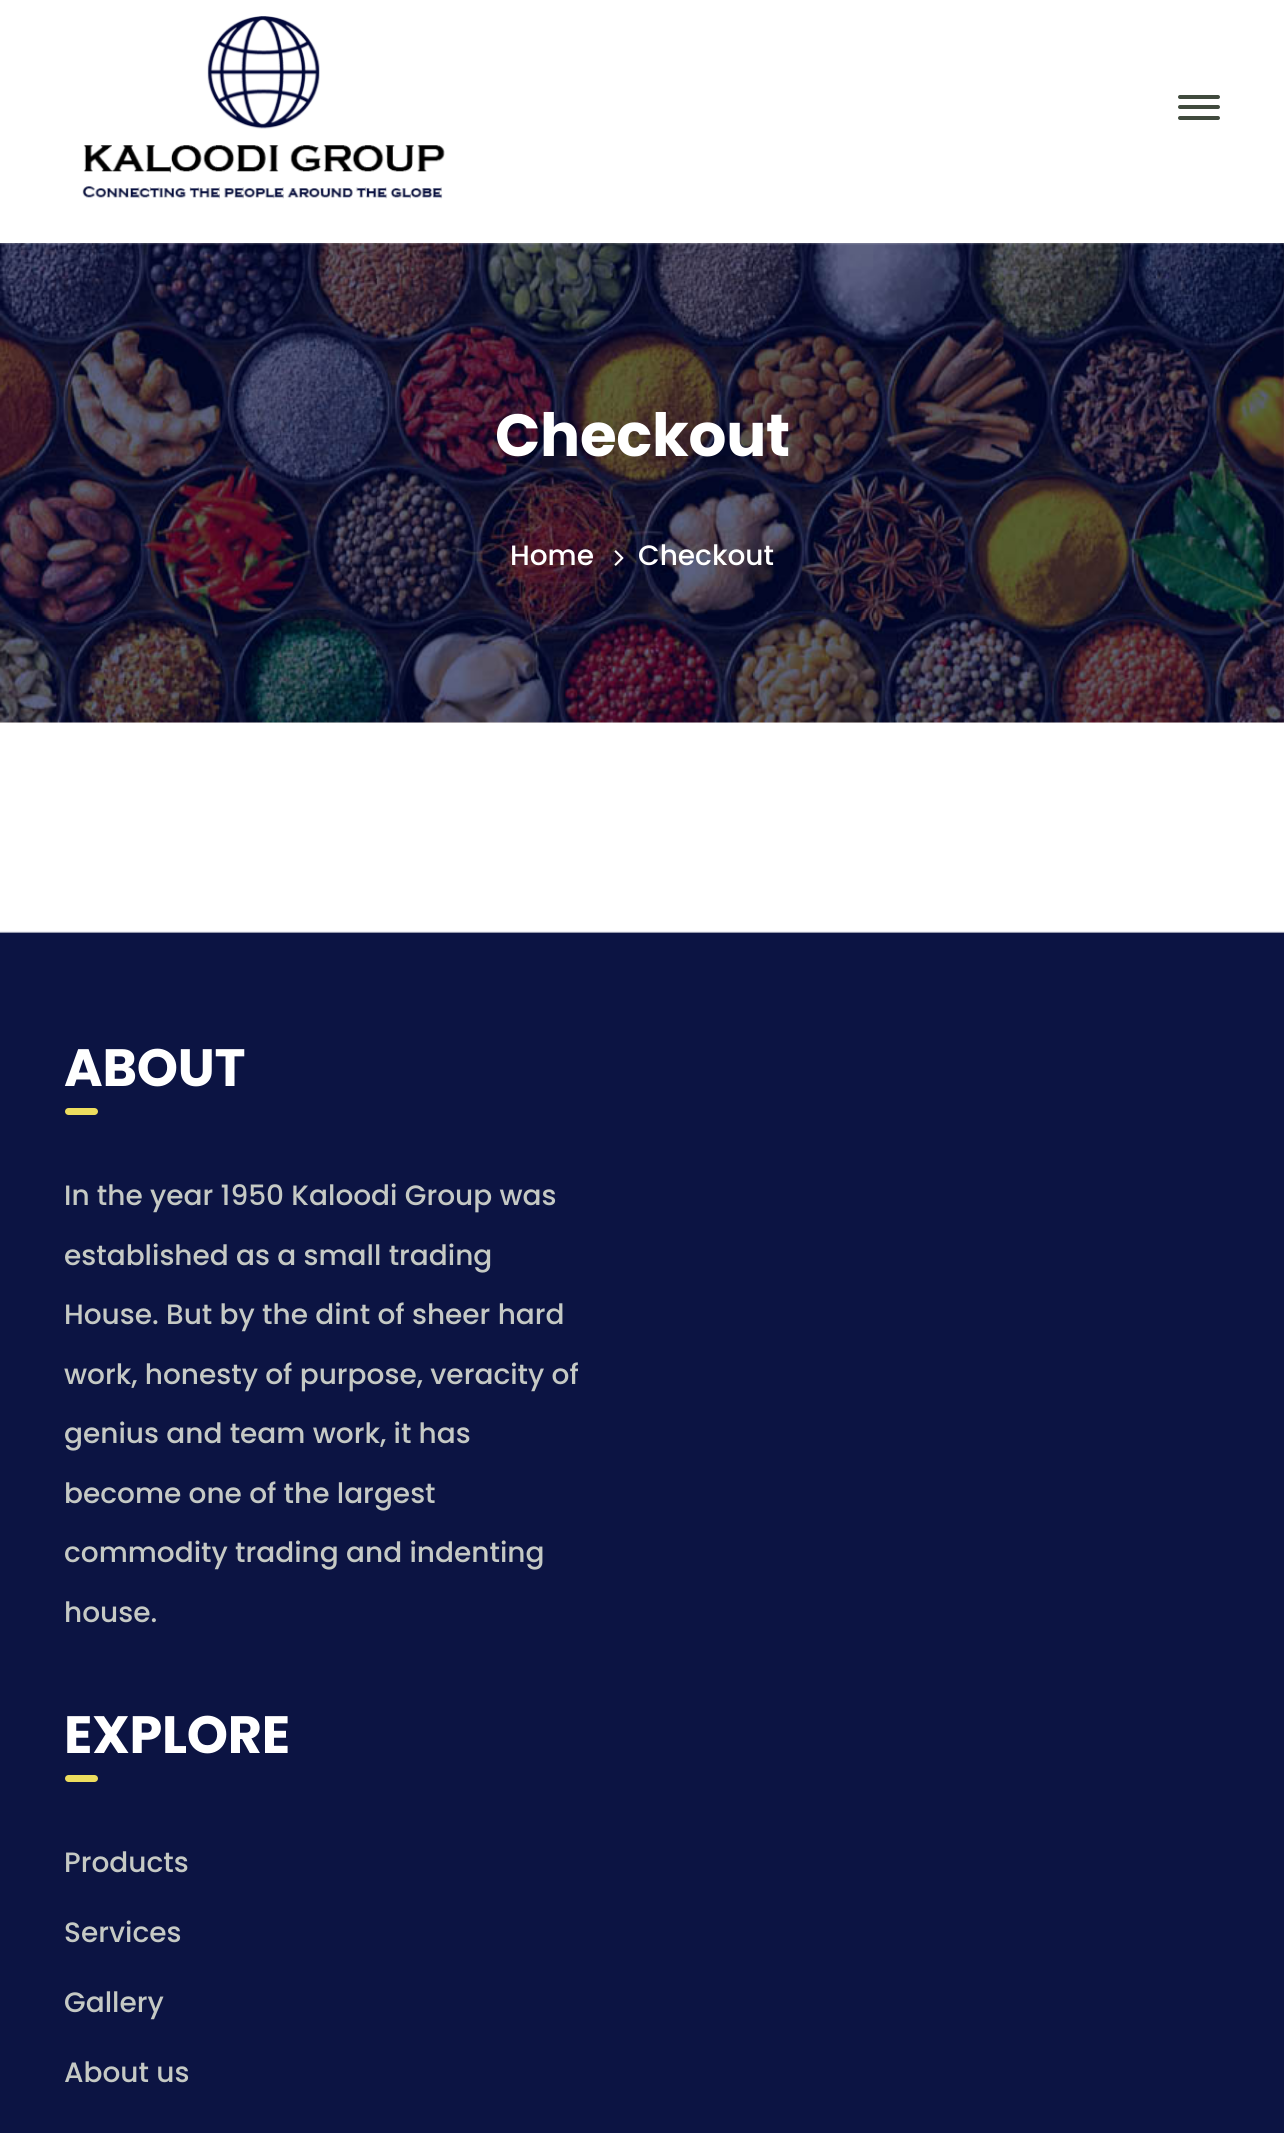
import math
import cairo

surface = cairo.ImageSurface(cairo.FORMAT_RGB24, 1284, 2133)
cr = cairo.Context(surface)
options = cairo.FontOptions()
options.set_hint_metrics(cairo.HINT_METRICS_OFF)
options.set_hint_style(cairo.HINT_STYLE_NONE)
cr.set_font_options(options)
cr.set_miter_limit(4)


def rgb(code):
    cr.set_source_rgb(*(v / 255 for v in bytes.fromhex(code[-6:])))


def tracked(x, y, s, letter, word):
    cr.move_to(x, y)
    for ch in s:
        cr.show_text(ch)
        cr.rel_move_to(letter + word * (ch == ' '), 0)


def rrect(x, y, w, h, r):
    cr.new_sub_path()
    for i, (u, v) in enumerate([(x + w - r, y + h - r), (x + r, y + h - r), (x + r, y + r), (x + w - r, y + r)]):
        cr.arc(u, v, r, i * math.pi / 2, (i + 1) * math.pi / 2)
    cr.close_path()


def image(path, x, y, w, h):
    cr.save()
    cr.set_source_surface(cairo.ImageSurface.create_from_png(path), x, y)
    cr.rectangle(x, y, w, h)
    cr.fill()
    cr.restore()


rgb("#ffffff")
cr.paint()
image("img/1.png", 82, 16, 363, 183)
rgb("#404a3d")
rrect(1178, 95, 42, 4, 2)
cr.fill()
rrect(1178, 105, 42, 4, 2)
cr.fill()
rrect(1178, 116, 42, 4, 2)
cr.fill()
rgb("#f5f0e9")
cr.rectangle(0, 243, 1284, 480)
cr.fill()
image("img/2.png", 0, 243, 1284, 480)
image("img/3.png", 614, 550, 10, 16)
image("img/4.png", 0, 931, 1284, 1202)
rgb("#eddd5e")
rrect(65, 1108, 33, 7, 3.5)
cr.fill()
rrect(65, 1775, 33, 7, 3.5)
cr.fill()
cr.select_font_face("Poppins", cairo.FONT_SLANT_NORMAL, cairo.FONT_WEIGHT_BOLD)
cr.set_font_size(59.5)
rgb("#ffffff")
tracked(495, 456, "Checkout", -0.25, 0)
cr.select_font_face("Poppins Medium")
cr.set_font_size(28)
cr.move_to(510, 565)
cr.show_text("Home")
cr.move_to(638, 565)
cr.show_text("Checkout")
cr.select_font_face("Poppins", cairo.FONT_SLANT_NORMAL, cairo.FONT_WEIGHT_BOLD)
cr.set_font_size(52.5)
tracked(64, 1086, "ABOUT", -0.25, 0)
cr.select_font_face("Poppins Medium")
cr.set_font_size(28)
rgb("#c5c9c4")
for x, y, s in [
    (64, 1205, "In the year 1950 Kaloodi Group was"),
    (64, 1265, "established as a small trading"),
    (64, 1324, "House. But by the dint of sheer hard"),
    (64, 1384, "work, honesty of purpose, veracity of"),
    (64, 1443, "genius and team work, it has"),
    (64, 1503, "become one of the largest"),
    (64, 1562, "commodity trading and indenting"),
    (64, 1622, "house."),
]:
    cr.move_to(x, y)
    cr.show_text(s)
cr.select_font_face("Poppins", cairo.FONT_SLANT_NORMAL, cairo.FONT_WEIGHT_BOLD)
cr.set_font_size(52.5)
rgb("#ffffff")
tracked(64, 1753, "EXPLORE", -0.25, 0)
cr.select_font_face("Poppins Medium")
cr.set_font_size(28)
rgb("#c5c9c4")
for x, y, s in [
    (64, 1872, "Products"),
    (64, 1942, "Services"),
    (64, 2012, "Gallery"),
    (64, 2082, "About us"),
]:
    cr.move_to(x, y)
    cr.show_text(s)
surface.write_to_png("page.png")
